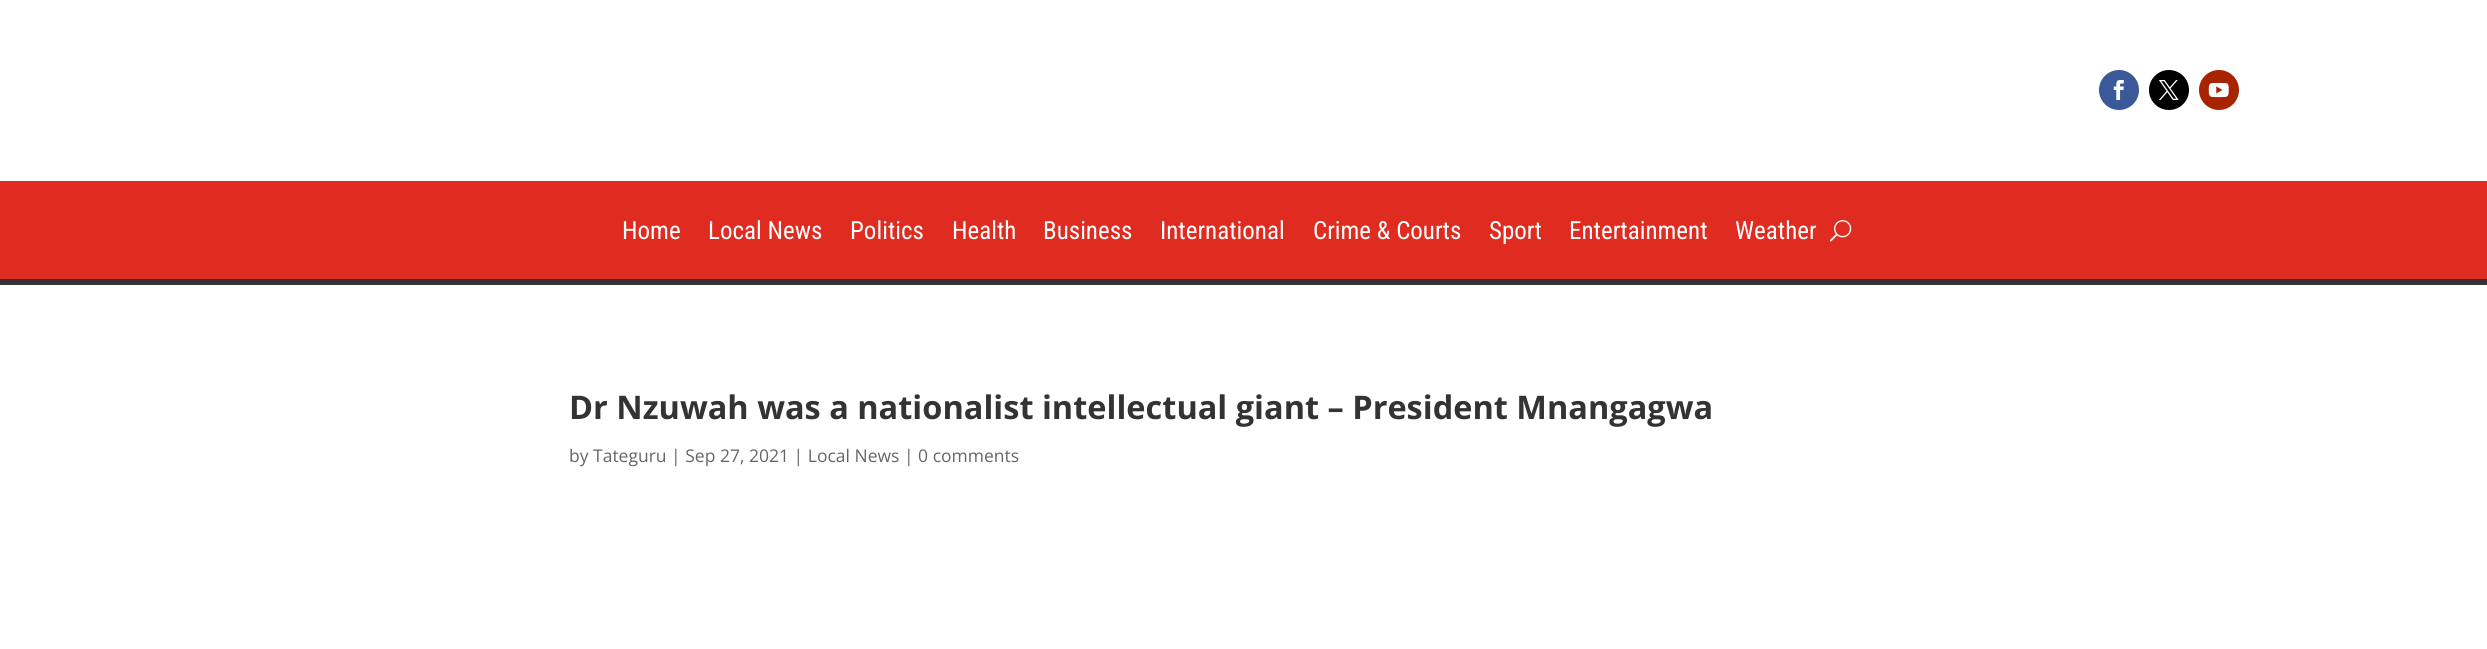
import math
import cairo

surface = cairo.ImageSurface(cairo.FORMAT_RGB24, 2487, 649)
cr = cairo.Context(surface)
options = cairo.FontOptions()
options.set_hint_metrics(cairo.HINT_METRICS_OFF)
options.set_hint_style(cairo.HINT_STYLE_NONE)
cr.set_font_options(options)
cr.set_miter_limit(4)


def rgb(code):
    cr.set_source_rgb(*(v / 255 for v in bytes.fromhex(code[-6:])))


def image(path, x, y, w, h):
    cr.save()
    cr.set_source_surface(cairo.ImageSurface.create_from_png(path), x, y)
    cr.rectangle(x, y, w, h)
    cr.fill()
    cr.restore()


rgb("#ffffff")
cr.paint()
rgb("#3b5998")
cr.arc(2119, 90, 20, 0, 2 * math.pi)
cr.fill()
image("img/1.png", 2113, 80, 11, 20)
rgb("#000000")
cr.arc(2169, 90, 20, 0, 2 * math.pi)
cr.fill()
image("img/2.png", 2159, 80, 20, 20)
rgb("#a82400")
cr.arc(2219, 90, 20, 0, 2 * math.pi)
cr.fill()
image("img/3.png", 2208, 82, 21, 16)
rgb("#e02b20")
cr.rectangle(0, 181, 2487, 98)
cr.fill()
rgb("#333333")
cr.rectangle(0, 279, 2487, 6)
cr.fill()
image("img/4.png", 1830, 220, 22, 22)
cr.select_font_face("Roboto Condensed")
cr.set_font_size(25)
rgb("#ffffff")
for x, y, s in [
    (622, 239, "Home"),
    (708, 239, "Local News"),
    (850, 239, "Politics"),
    (952, 239, "Health"),
    (1043, 239, "Business"),
    (1160, 239, "International"),
    (1313, 239, "Crime & Courts"),
    (1489, 239, "Sport"),
    (1569, 239, "Entertainment"),
    (1735, 239, "Weather"),
]:
    cr.move_to(x, y)
    cr.show_text(s)
cr.select_font_face("Open Sans", cairo.FONT_SLANT_NORMAL, cairo.FONT_WEIGHT_BOLD)
cr.set_font_size(32.5)
rgb("#333333")
cr.move_to(569, 419)
cr.show_text("Dr Nzuwah was a nationalist intellectual giant – President Mnangagwa")
cr.select_font_face("Open Sans")
cr.set_font_size(17.5)
rgb("#666666")
cr.move_to(569, 462)
cr.show_text("by Tateguru | Sep 27, 2021 | Local News | 0 comments")
surface.write_to_png("page.png")
